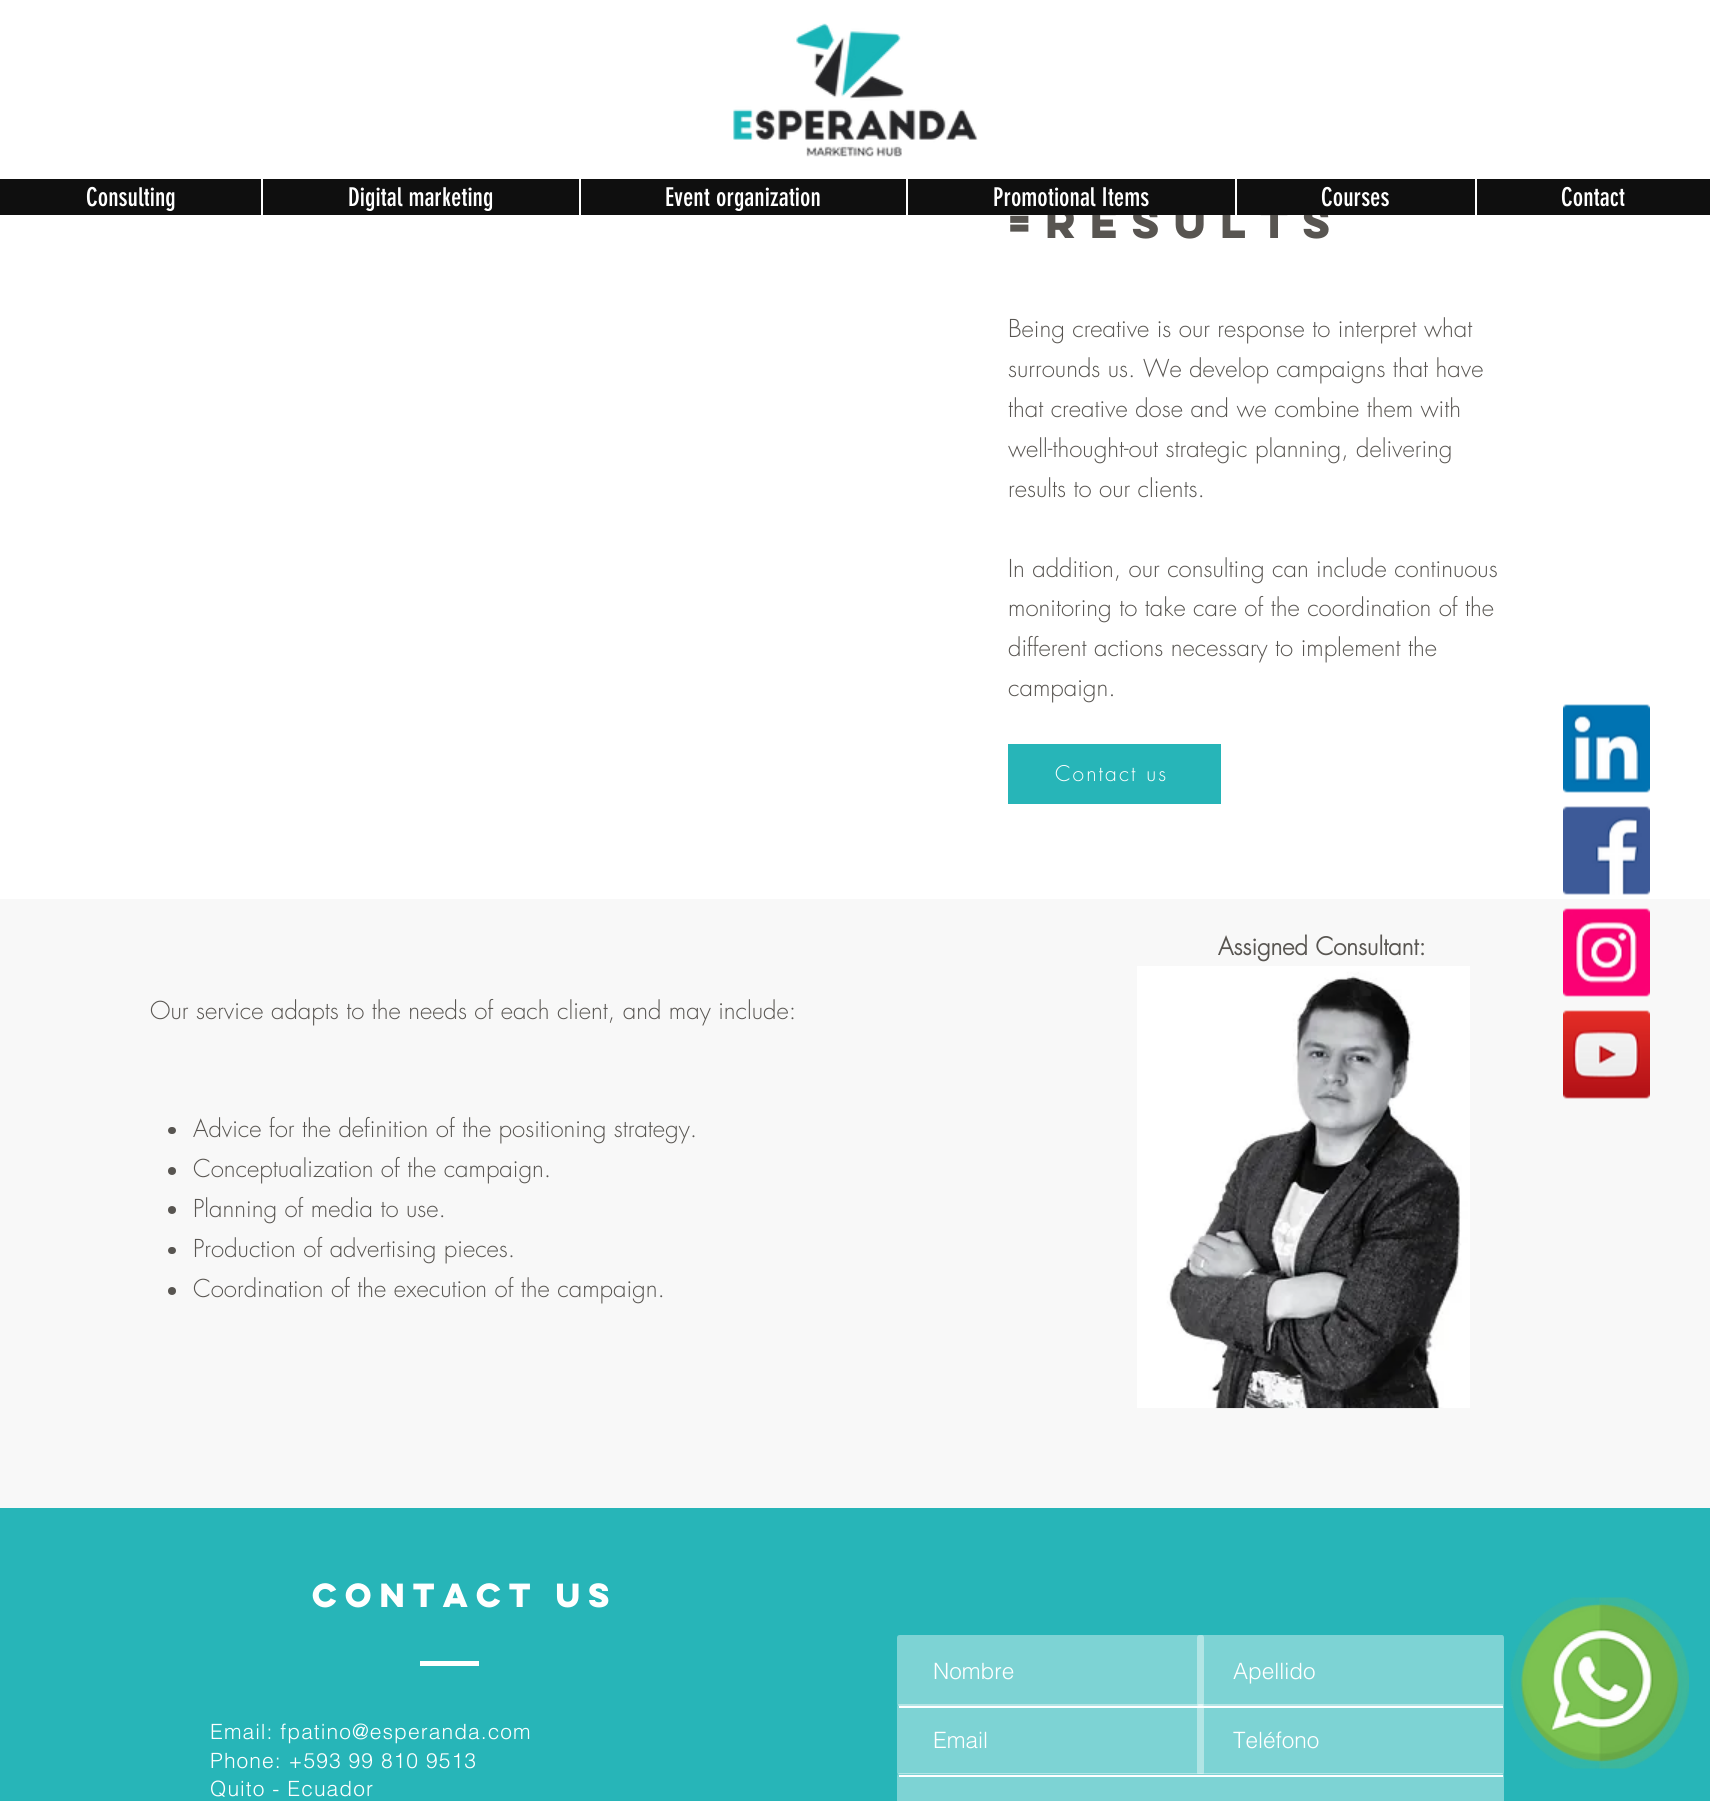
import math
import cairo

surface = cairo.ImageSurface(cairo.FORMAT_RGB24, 1710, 1801)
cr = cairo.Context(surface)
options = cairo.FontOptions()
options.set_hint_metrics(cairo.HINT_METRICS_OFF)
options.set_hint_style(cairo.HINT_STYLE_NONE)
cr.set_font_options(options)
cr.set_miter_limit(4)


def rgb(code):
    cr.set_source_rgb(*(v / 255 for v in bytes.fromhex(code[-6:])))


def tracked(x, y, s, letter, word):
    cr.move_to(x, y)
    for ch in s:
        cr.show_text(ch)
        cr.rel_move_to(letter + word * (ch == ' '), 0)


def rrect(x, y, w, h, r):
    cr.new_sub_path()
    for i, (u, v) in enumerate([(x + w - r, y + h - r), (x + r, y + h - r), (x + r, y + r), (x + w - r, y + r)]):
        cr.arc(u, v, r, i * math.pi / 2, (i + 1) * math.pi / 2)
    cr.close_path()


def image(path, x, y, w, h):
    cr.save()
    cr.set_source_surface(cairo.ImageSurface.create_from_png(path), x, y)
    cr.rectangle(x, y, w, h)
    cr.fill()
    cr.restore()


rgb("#f8f8f8")
cr.paint()
rgb("#ffffff")
cr.rectangle(0, 0, 1710, 179)
cr.fill()
image("img/1.png", 733, 23, 245, 134)
cr.rectangle(0, 215, 1710, 684)
cr.fill()
rgb("#27b5b8")
cr.rectangle(1008, 744, 213, 60)
cr.fill()
rgb("#585551")
rrect(168, 1127, 8, 7, 3.5)
cr.fill()
cr.arc(172, 1171, 4, 0, 2 * math.pi)
cr.fill()
cr.arc(172, 1210, 4, 0, 2 * math.pi)
cr.fill()
rrect(168, 1247, 8, 7, 3.5)
cr.fill()
cr.arc(172, 1291, 4, 0, 2 * math.pi)
cr.fill()
image("img/2.png", 1137, 966, 333, 443)
image("img/3.png", 1563, 704, 87, 89)
image("img/4.png", 1563, 806, 87, 89)
image("img/5.png", 1563, 908, 87, 89)
image("img/6.png", 1563, 1010, 87, 89)
rgb("#27b5b8")
cr.rectangle(0, 1508, 1710, 293)
cr.fill()
rgb("#fffffe")
cr.rectangle(420, 1661, 59, 5)
cr.fill()
rgb("#7dd3d4")
cr.new_path()
cr.move_to(900, 1635)
cr.line_to(1202, 1635)
cr.curve_to(1203, 1635, 1204, 1636, 1204, 1638)
cr.line_to(1204, 1704)
cr.curve_to(1204, 1705, 1203, 1706, 1202, 1706)
cr.line_to(900, 1706)
cr.curve_to(898, 1706, 897, 1705, 897, 1704)
cr.line_to(897, 1638)
cr.curve_to(897, 1636, 898, 1635, 900, 1635)
cr.close_path()
cr.fill()
rgb("#ffffff")
cr.rectangle(899, 1706, 604, 2)
cr.fill()
cr.set_source_rgba(1, 1, 1, 0.4)
cr.new_path()
cr.move_to(1200, 1635)
cr.line_to(1502, 1635)
cr.curve_to(1503, 1635, 1504, 1636, 1504, 1638)
cr.line_to(1504, 1704)
cr.curve_to(1504, 1705, 1503, 1706, 1502, 1706)
cr.line_to(1200, 1706)
cr.curve_to(1198, 1706, 1197, 1705, 1197, 1704)
cr.line_to(1197, 1638)
cr.curve_to(1197, 1636, 1198, 1635, 1200, 1635)
cr.close_path()
cr.fill()
cr.new_path()
cr.move_to(900, 1704)
cr.line_to(1202, 1704)
cr.curve_to(1203, 1704, 1204, 1705, 1204, 1707)
cr.line_to(1204, 1773)
cr.curve_to(1204, 1774, 1203, 1774, 1202, 1774)
cr.line_to(900, 1774)
cr.curve_to(898, 1774, 897, 1774, 897, 1773)
cr.line_to(897, 1707)
cr.curve_to(897, 1705, 898, 1704, 900, 1704)
cr.close_path()
cr.fill()
rgb("#ffffff")
cr.rectangle(899, 1775, 604, 2)
cr.fill()
cr.set_source_rgba(1, 1, 1, 0.4)
cr.new_path()
cr.move_to(1200, 1704)
cr.line_to(1502, 1704)
cr.curve_to(1503, 1704, 1504, 1705, 1504, 1707)
cr.line_to(1504, 1773)
cr.curve_to(1504, 1774, 1503, 1774, 1502, 1774)
cr.line_to(1200, 1774)
cr.curve_to(1198, 1774, 1197, 1774, 1197, 1773)
cr.line_to(1197, 1707)
cr.curve_to(1197, 1705, 1198, 1704, 1200, 1704)
cr.close_path()
cr.fill()
cr.new_path()
cr.move_to(900, 1773)
cr.line_to(1502, 1773)
cr.curve_to(1503, 1773, 1504, 1774, 1504, 1776)
cr.line_to(1504, 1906)
cr.curve_to(1504, 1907, 1503, 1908, 1502, 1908)
cr.line_to(900, 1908)
cr.curve_to(898, 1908, 897, 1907, 897, 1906)
cr.line_to(897, 1776)
cr.curve_to(897, 1774, 898, 1773, 900, 1773)
cr.close_path()
cr.fill()
image("img/7.png", 1510, 1597, 179, 172)
cr.select_font_face("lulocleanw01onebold", cairo.FONT_SLANT_NORMAL, cairo.FONT_WEIGHT_BOLD)
cr.set_font_size(39)
rgb("#585551")
tracked(1008, 238, "=RESULTS", 5.75, 0)
rgb("#0f0f0f")
cr.rectangle(0, 179, 1710, 36)
cr.fill()
cr.select_font_face("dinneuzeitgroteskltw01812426")
cr.set_font_size(25.5)
rgb("#ffffff")
cr.move_to(1561, 206)
cr.show_text("Contact")
cr.rectangle(1475, 179, 2, 36)
cr.fill()
cr.move_to(1321, 206)
cr.show_text("Courses")
cr.rectangle(1235, 179, 2, 36)
cr.fill()
cr.move_to(993, 206)
cr.show_text("Promotional Items")
cr.rectangle(906, 179, 2, 36)
cr.fill()
cr.move_to(665, 206)
cr.show_text("Event organization")
cr.rectangle(579, 179, 2, 36)
cr.fill()
cr.move_to(348, 206)
cr.show_text("Digital marketing")
cr.rectangle(261, 179, 2, 36)
cr.fill()
cr.move_to(86, 206)
cr.show_text("Consulting")
cr.select_font_face("futura Light")
cr.set_font_size(24)
rgb("#585551")
for x, y, s in [
    (1008, 337, "Being creative is our response to interpret what"),
    (1008, 377, "surrounds us. We develop campaigns that have"),
    (1008, 417, "that creative dose and we combine them with"),
    (1008, 457, "well-thought-out strategic planning, delivering"),
    (1008, 497, "results to our clients."),
    (1008, 577, "In addition, our consulting can include continuous"),
    (1008, 616, "monitoring to take care of the coordination of the"),
    (1008, 656, "different actions necessary to implement the"),
    (1008, 696, "campaign."),
]:
    cr.move_to(x, y)
    cr.show_text(s)
cr.set_font_size(21)
rgb("#ffffff")
tracked(1055, 781, "Contact us", 2.1, 0)
cr.select_font_face("futura", cairo.FONT_SLANT_NORMAL, cairo.FONT_WEIGHT_BOLD)
cr.set_font_size(24)
rgb("#585551")
cr.move_to(1218, 955)
cr.show_text("Assigned Consultant:")
cr.select_font_face("futura Light")
for x, y, s in [
    (150, 1019, "Our service adapts to the needs of each client, and may include:"),
    (193, 1137, "Advice for the definition of the positioning strategy."),
    (193, 1177, "Conceptualization of the campaign."),
    (193, 1217, "Planning of media to use."),
    (193, 1257, "Production of advertising pieces."),
    (193, 1297, "Coordination of the execution of the campaign."),
]:
    cr.move_to(x, y)
    cr.show_text(s)
cr.select_font_face("lulocleanw01onebold", cairo.FONT_SLANT_NORMAL, cairo.FONT_WEIGHT_BOLD)
cr.set_font_size(30)
rgb("#ffffff")
tracked(312, 1607, "CONTACT US", 1.5, 0)
cr.select_font_face("helvetica Light")
cr.set_font_size(22.5)
for x, y, s in [
    (933, 1679, "Nombre"),
    (1233, 1679, "Apellido"),
    (933, 1748, "Email"),
    (1233, 1748, "Teléfono"),
]:
    cr.move_to(x, y)
    cr.show_text(s)
cr.set_font_size(21)
for x, y, s in [
    (210, 1739, "Email: fpatino@esperanda.com"),
    (210, 1768, "Phone: +593 99 810 9513"),
    (210, 1796, "Quito - Ecuador"),
]:
    tracked(x, y, s, 1.05, 0)
surface.write_to_png("page.png")
